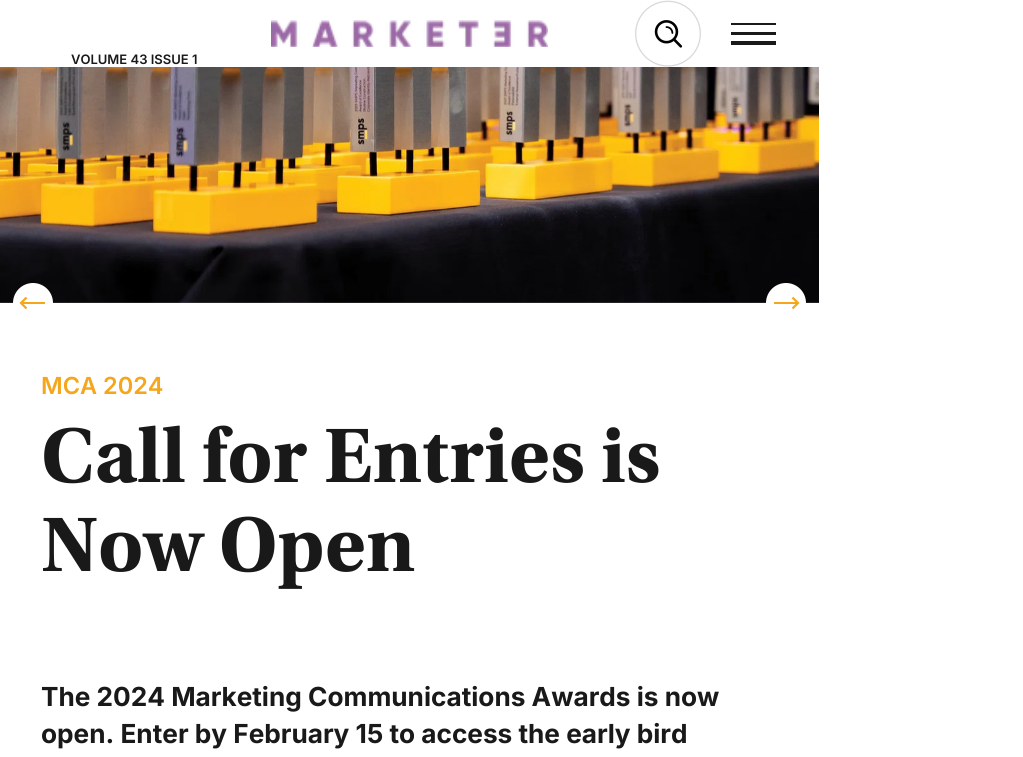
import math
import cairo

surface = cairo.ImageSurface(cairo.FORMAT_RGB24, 1023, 757)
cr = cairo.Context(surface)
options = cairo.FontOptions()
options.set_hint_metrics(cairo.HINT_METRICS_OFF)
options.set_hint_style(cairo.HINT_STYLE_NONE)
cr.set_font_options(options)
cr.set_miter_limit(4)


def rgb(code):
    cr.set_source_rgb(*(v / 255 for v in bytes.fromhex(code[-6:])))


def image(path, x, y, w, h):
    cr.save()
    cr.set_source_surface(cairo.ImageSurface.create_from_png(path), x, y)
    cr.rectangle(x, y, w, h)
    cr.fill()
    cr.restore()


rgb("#ffffff")
cr.paint()
image("img/1.png", 271, 20, 277, 27)
image("img/2.png", 635, 0, 66, 67)
for x, y, w, h, color in [
    (731, 23, 45, 2, "#1a1919"),
    (731, 32, 45, 3, "#1a1919"),
    (731, 41, 45, 4, "#1a1919"),
]:
    rgb(color)
    cr.rectangle(x, y, w, h)
    cr.fill()
image("img/3.png", 0, 67, 819, 236)
rgb("#ffffff")
cr.arc(33, 303, 20, 0, 2 * math.pi)
cr.fill()
cr.new_path()
cr.move_to(26.5, 308.5)
cr.line_to(21, 303)
cr.line_to(26.5, 297.5)
rgb("#f4a71c")
cr.set_line_width(2.2)
cr.stroke()
cr.rectangle(22, 302, 23, 2)
cr.fill()
rgb("#ffffff")
cr.arc(786, 303, 20, 0, 2 * math.pi)
cr.fill()
cr.new_path()
cr.move_to(792.5, 297.5)
cr.line_to(798, 303)
cr.line_to(792.5, 308.5)
rgb("#f4a71c")
cr.stroke()
cr.rectangle(774, 302, 23, 2)
cr.fill()
cr.select_font_face("Inter SemiBold")
cr.set_font_size(13)
rgb("#1a1919")
cr.move_to(71, 64)
cr.show_text("VOLUME 43 ISSUE 1")
cr.set_font_size(23.5)
rgb("#f4a71c")
cr.move_to(41, 394)
cr.show_text("MCA 2024")
cr.select_font_face("Utopia", cairo.FONT_SLANT_NORMAL, cairo.FONT_WEIGHT_BOLD)
cr.set_font_size(81.25)
rgb("#1a1919")
cr.move_to(41, 482)
cr.show_text("Call for Entries is")
cr.move_to(41, 571)
cr.show_text("Now Open")
cr.select_font_face("Inter", cairo.FONT_SLANT_NORMAL, cairo.FONT_WEIGHT_BOLD)
cr.set_font_size(26.2)
cr.move_to(41, 706)
cr.show_text("The 2024 Marketing Communications Awards is now")
cr.move_to(41, 743)
cr.show_text("open. Enter by February 15 to access the early bird")
surface.write_to_png("page.png")
